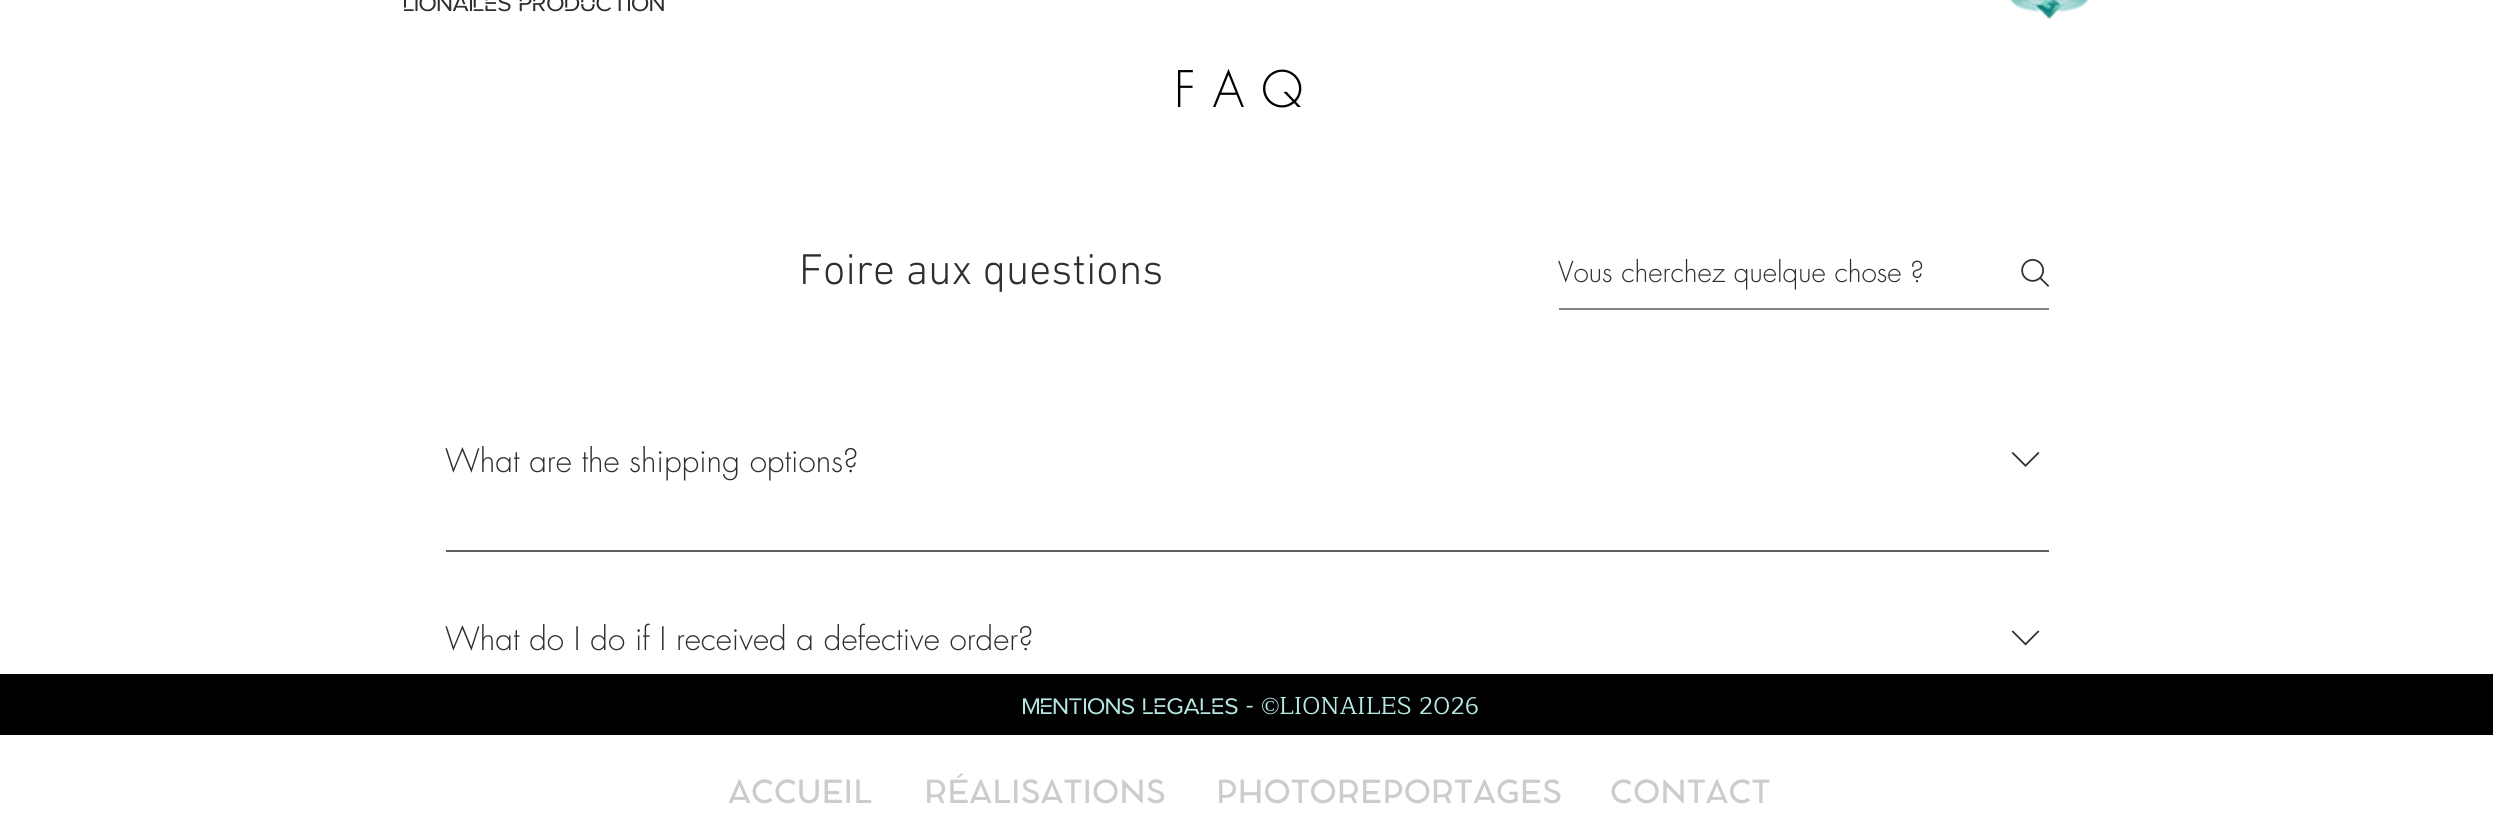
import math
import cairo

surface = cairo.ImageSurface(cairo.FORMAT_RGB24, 2493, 825)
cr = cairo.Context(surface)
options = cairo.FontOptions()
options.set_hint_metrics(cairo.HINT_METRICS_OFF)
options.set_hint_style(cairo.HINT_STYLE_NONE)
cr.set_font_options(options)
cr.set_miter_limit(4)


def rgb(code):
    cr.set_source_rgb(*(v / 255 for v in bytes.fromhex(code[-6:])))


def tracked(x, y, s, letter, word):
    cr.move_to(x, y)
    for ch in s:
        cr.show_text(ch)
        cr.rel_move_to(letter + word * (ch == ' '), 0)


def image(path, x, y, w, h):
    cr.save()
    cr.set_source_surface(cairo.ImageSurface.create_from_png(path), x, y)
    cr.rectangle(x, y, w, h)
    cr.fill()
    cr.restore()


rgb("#ffffff")
cr.paint()
image("img/1.png", 2009, 0, 81, 20)
rgb("#828282")
cr.rectangle(1559, 308, 490, 2)
cr.fill()
image("img/2.png", 2021, 259, 29, 28)
rgb("#2f2e2e")
cr.set_fill_rule(cairo.FILL_RULE_EVEN_ODD)
cr.new_path()
cr.move_to(2038, 452)
cr.line_to(2039.5, 453)
cr.line_to(2025.5, 467)
cr.line_to(2011.5, 453)
cr.line_to(2013, 452)
cr.line_to(2025.5, 464.5)
cr.close_path()
cr.fill()
rgb("#605e5e")
cr.rectangle(446, 550, 1603, 2)
cr.fill()
rgb("#2f2e2e")
cr.new_path()
cr.move_to(2038, 630.5)
cr.line_to(2039.5, 631.5)
cr.line_to(2025.5, 645.5)
cr.line_to(2011.5, 631.5)
cr.line_to(2013, 630.5)
cr.line_to(2025.5, 643)
cr.close_path()
cr.fill()
rgb("#000000")
cr.rectangle(0, 674, 2493, 61)
cr.fill()
cr.select_font_face("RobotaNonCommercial")
cr.set_font_size(24.5)
rgb("#2f2e2e")
cr.move_to(403, 11)
cr.show_text("LIONAILES PRODUCTION")
cr.select_font_face("futura Light")
cr.set_font_size(49)
rgb("#000000")
tracked(1174, 107, "FAQ", 17, 0)
cr.select_font_face("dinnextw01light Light")
cr.set_font_size(43.75)
rgb("#2f2e2e")
cr.move_to(799, 284)
cr.show_text("Foire aux questions")
cr.select_font_face("futura Light")
cr.set_font_size(28)
cr.move_to(1558, 282)
cr.show_text("Vous cherchez quelque chose ?")
cr.set_font_size(31.5)
cr.move_to(445, 472)
cr.show_text("What are the shipping options?")
cr.move_to(445, 650)
cr.show_text("What do I do if I received a defective order?")
cr.select_font_face("RobotaNonCommercial")
cr.set_font_size(24.5)
rgb("#b6e8e3")
cr.move_to(1022, 714)
cr.show_text("MENTIONS LÉGALES -")
cr.select_font_face("Liberation Serif")
cr.move_to(1261, 714)
cr.show_text("©")
cr.select_font_face("Maitree")
cr.move_to(1279, 714)
cr.show_text("LIONAILES 2026")
cr.select_font_face("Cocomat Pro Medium")
cr.set_font_size(31.5)
rgb("#cccccc")
for x, y, s in [
    (728, 803, "ACCUEIL"),
    (924, 803, "RÉALISATIONS"),
    (1216, 803, "PHOTOREPORTAGES"),
    (1610, 803, "CONTACT"),
]:
    cr.move_to(x, y)
    cr.show_text(s)
surface.write_to_png("page.png")
